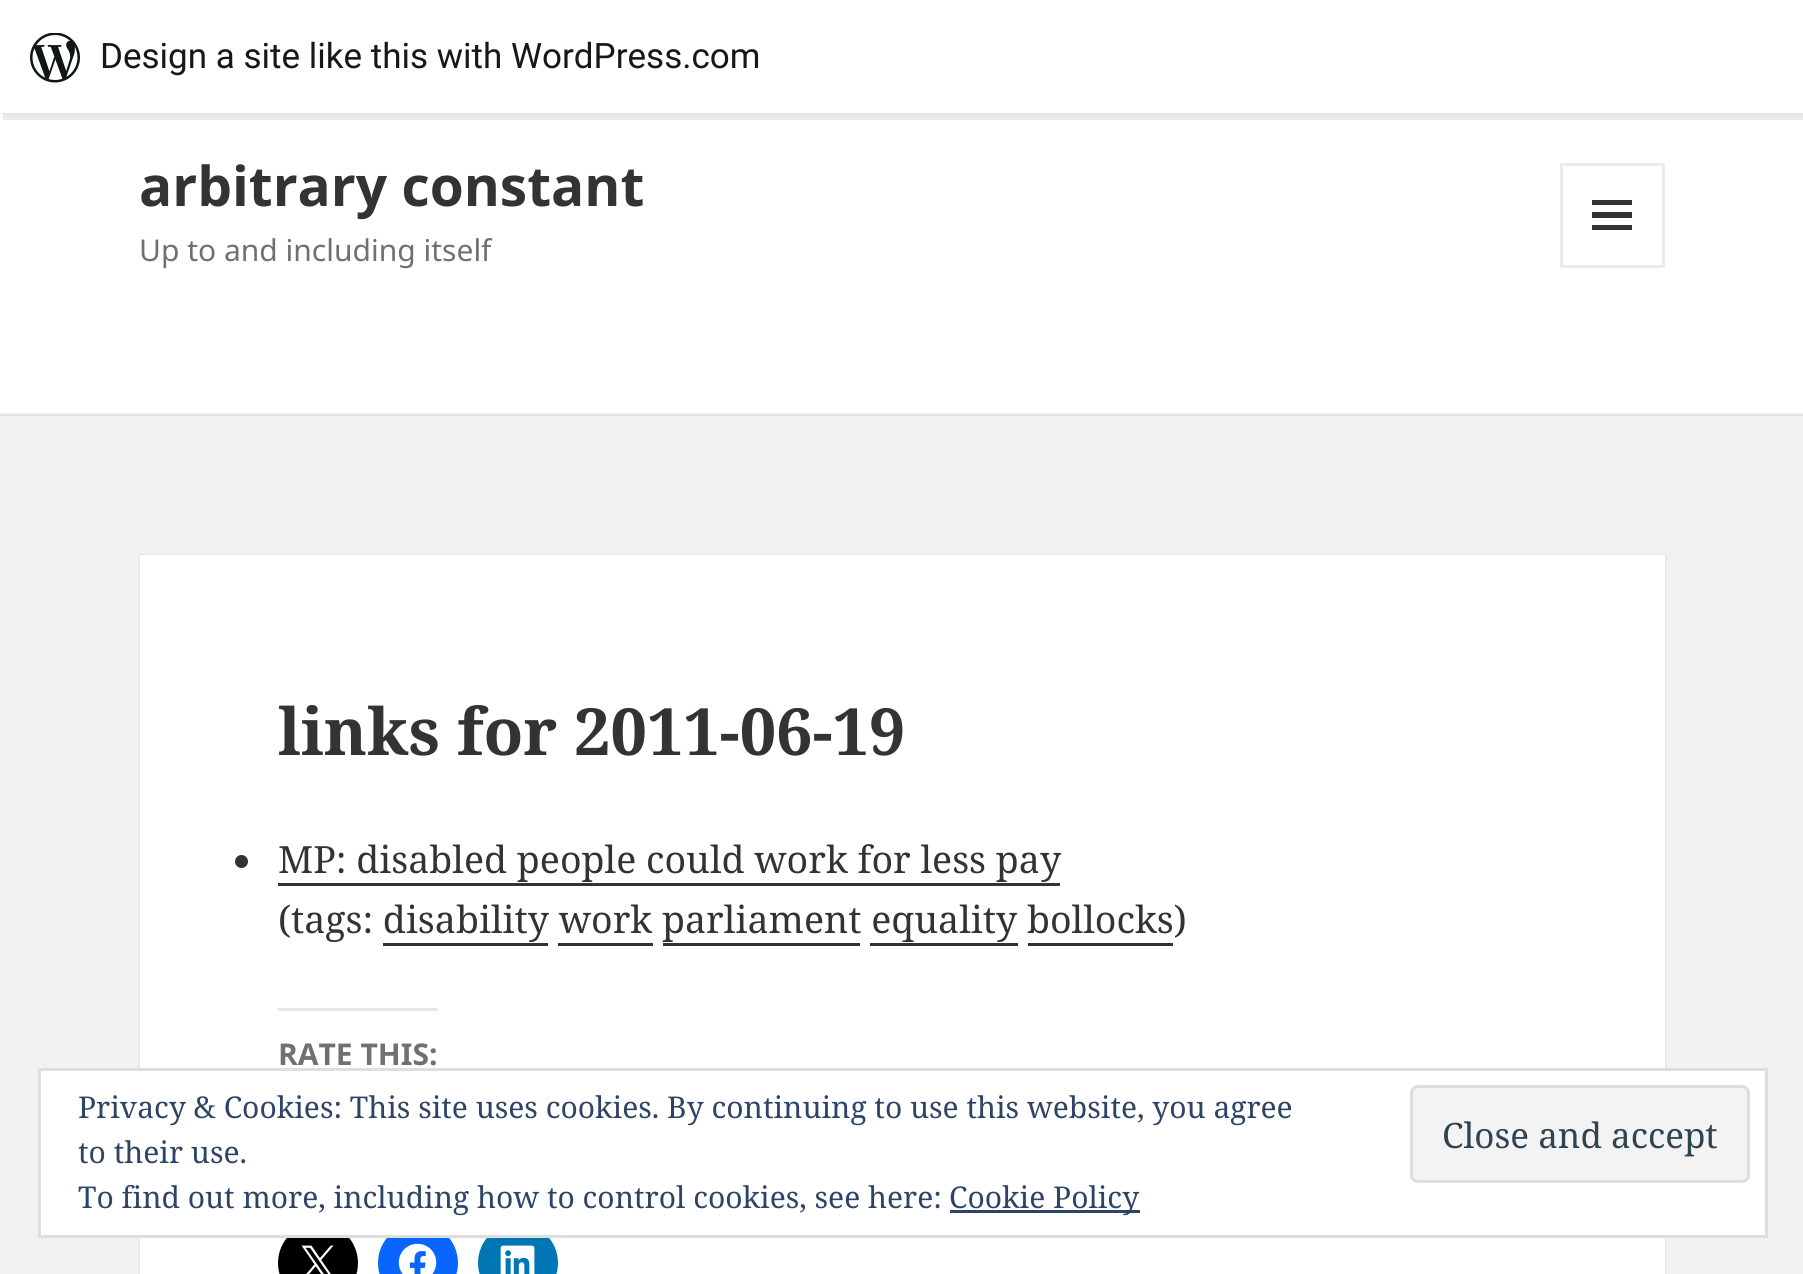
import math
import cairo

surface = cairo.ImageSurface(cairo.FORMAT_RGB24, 1803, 1274)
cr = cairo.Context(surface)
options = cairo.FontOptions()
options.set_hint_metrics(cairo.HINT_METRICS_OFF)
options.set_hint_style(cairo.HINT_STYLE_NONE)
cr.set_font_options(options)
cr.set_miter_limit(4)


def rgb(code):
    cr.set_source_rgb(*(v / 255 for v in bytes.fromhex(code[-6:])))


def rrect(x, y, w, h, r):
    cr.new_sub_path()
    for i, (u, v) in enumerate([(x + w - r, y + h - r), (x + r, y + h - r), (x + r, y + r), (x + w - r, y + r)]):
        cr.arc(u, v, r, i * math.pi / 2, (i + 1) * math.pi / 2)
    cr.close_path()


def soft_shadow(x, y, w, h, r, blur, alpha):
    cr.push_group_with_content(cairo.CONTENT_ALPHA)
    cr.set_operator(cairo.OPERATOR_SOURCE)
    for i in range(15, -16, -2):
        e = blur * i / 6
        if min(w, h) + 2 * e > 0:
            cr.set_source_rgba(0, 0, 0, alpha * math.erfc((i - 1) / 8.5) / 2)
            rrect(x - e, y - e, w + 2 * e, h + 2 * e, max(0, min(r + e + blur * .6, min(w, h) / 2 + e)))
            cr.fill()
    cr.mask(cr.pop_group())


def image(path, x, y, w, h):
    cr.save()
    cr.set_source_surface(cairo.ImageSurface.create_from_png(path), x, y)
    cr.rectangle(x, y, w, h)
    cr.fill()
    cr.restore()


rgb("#f1f1f1")
cr.paint()
rgb("#dedede")
cr.rectangle(0, 415, 1803, 1)
cr.fill()
rgb("#ffffff")
cr.rectangle(0, 113, 1803, 300)
cr.fill()
rgb("#000000")
soft_shadow(0, 3, 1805, 112, 0, 2.5, 0.05)
cr.set_source_rgba(0, 0, 0, 0.08)
cr.new_path()
cr.move_to(3, 112)
cr.line_to(3, 120)
cr.line_to(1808, 120)
cr.line_to(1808, 8)
cr.line_to(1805, 8)
cr.line_to(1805, 112)
cr.close_path()
cr.fill()
rgb("#ffffff")
cr.rectangle(0, 0, 1803, 113)
cr.fill()
image("img/1.png", 30, 33, 50, 50)
rgb("#ebebeb")
cr.rectangle(0, 413, 1803, 2)
cr.fill()
cr.rectangle(1561.5, 164.5, 102, 102)
cr.set_line_width(3)
cr.stroke()
rgb("#333333")
cr.new_path()
cr.move_to(1592, 230)
cr.line_to(1592, 225)
cr.line_to(1632, 225)
cr.line_to(1632, 230)
cr.close_path()
cr.move_to(1592, 200)
cr.line_to(1632, 200)
cr.line_to(1632, 205)
cr.line_to(1592, 205)
cr.close_path()
cr.move_to(1592, 218)
cr.line_to(1592, 212)
cr.line_to(1632, 212)
cr.line_to(1632, 218)
cr.close_path()
cr.fill()
rgb("#000000")
soft_shadow(140, 555, 1525, 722, 0, 1, 0.15)
rgb("#ffffff")
cr.rectangle(140, 555, 1525, 719)
cr.fill()
rgb("#333333")
cr.arc(241.5, 861.5, 6.5, 0, 2 * math.pi)
cr.fill()
for x, y, w, h, color in [
    (278, 883, 782, 3, "#333333"),
    (383, 943, 165, 3, "#333333"),
    (558, 943, 95, 3, "#333333"),
    (663, 943, 197, 3, "#333333"),
    (870, 943, 148, 3, "#333333"),
    (1028, 943, 145, 3, "#333333"),
    (278, 1008, 160, 3, "#e7e7e8"),
]:
    rgb(color)
    cr.rectangle(x, y, w, h)
    cr.fill()
rgb("#000000")
cr.arc(318, 1263, 40, 0, 2 * math.pi)
cr.fill()
image("img/2.png", 301, 1245, 33, 29)
rgb("#0866ff")
cr.arc(418, 1263, 40, 0, 2 * math.pi)
cr.fill()
image("img/3.png", 398, 1243, 39, 31)
rgb("#0077b5")
cr.arc(518, 1263, 40, 0, 2 * math.pi)
cr.fill()
image("img/4.png", 500, 1245, 35, 29)
rgb("#ffffff")
cr.rectangle(39.5, 1069.5, 1727, 167)
cr.fill_preserve()
rgb("#dedede")
cr.stroke()
rgb("#f3f3f3")
rrect(1411.5, 1086.5, 337, 95, 6.5)
cr.fill_preserve()
rgb("#dedede")
cr.stroke()
rgb("#2e4467")
cr.rectangle(950, 1210, 190, 3)
cr.fill()
cr.select_font_face("Roboto")
cr.set_font_size(35)
rgb("#171717")
cr.move_to(100, 68)
cr.show_text("Design a site like this with WordPress.com")
cr.select_font_face("Noto Sans", cairo.FONT_SLANT_NORMAL, cairo.FONT_WEIGHT_BOLD)
cr.set_font_size(55)
rgb("#333333")
cr.move_to(139, 206)
cr.show_text("arbitrary constant")
cr.select_font_face("Noto Sans")
cr.set_font_size(30)
rgb("#707070")
cr.move_to(139, 261)
cr.show_text("Up to and including itself")
cr.select_font_face("Noto Serif", cairo.FONT_SLANT_NORMAL, cairo.FONT_WEIGHT_BOLD)
cr.set_font_size(65)
rgb("#333333")
cr.move_to(278, 755)
cr.show_text("links for 2011-06-19")
cr.select_font_face("Noto Serif")
cr.set_font_size(37.5)
cr.move_to(278, 873)
cr.show_text("MP: disabled people could work for less pay")
cr.move_to(278, 933)
cr.show_text("(tags: disability work parliament equality bollocks)")
cr.select_font_face("Noto Sans", cairo.FONT_SLANT_NORMAL, cairo.FONT_WEIGHT_BOLD)
cr.set_font_size(30)
rgb("#707070")
cr.move_to(278, 1065)
cr.show_text("RATE THIS:")
cr.select_font_face("Noto Serif")
rgb("#2e4467")
cr.move_to(78, 1118)
cr.show_text("Privacy & Cookies: This site uses cookies. By continuing to use this website, you agree")
cr.move_to(78, 1163)
cr.show_text("to their use.")
cr.set_font_size(35)
rgb("#2e4453")
cr.move_to(1442, 1148)
cr.show_text("Close and accept")
cr.set_font_size(30)
rgb("#2e4467")
cr.move_to(78, 1208)
cr.show_text("To find out more, including how to control cookies, see here:")
cr.move_to(949, 1208)
cr.show_text("Cookie Policy")
surface.write_to_png("page.png")
